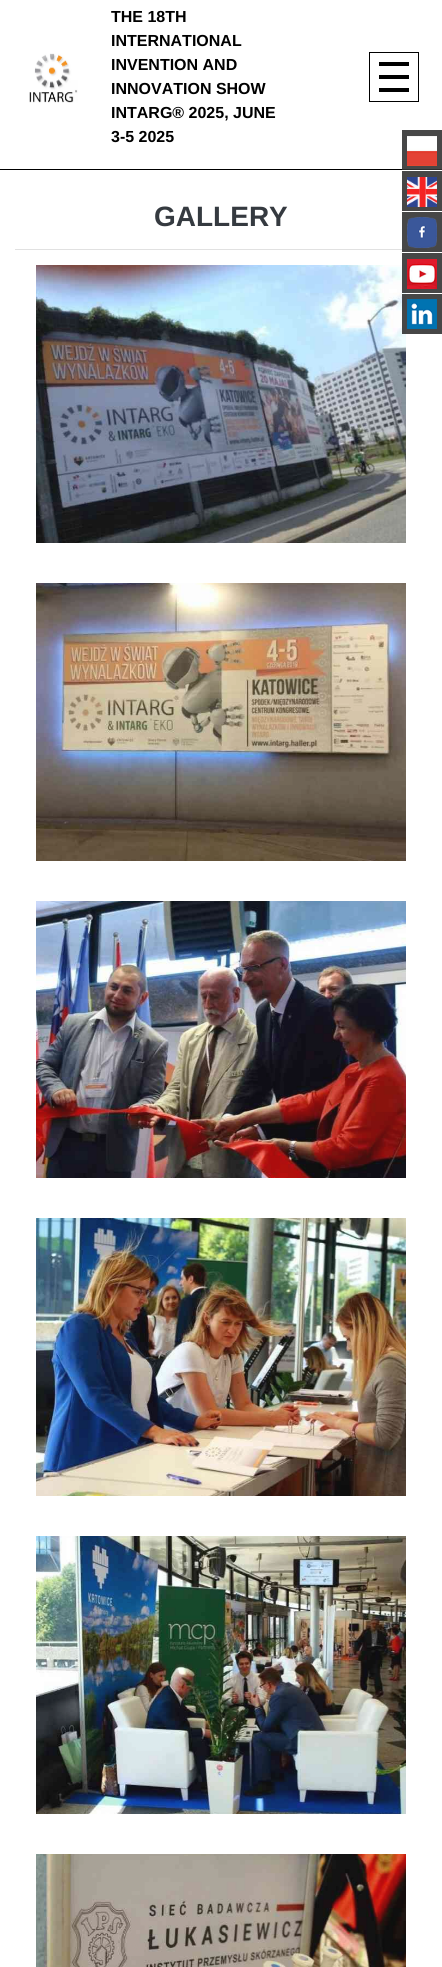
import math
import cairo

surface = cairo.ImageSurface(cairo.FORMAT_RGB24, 442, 1967)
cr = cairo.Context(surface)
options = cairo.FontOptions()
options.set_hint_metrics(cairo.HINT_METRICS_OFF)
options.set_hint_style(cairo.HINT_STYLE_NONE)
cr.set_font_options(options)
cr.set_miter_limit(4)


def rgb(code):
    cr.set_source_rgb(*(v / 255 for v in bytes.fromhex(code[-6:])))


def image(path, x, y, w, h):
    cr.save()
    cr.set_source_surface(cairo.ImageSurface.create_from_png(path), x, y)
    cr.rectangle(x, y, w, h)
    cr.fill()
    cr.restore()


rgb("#ffffff")
cr.paint()
for x, y, w, h, color in [
    (402, 212, 40, 40, "#474747"),
    (402, 130, 40, 39, "#474747"),
    (0, 169, 402, 1, "#000000"),
    (402, 169, 40, 1, "#2e2e2e"),
]:
    rgb(color)
    cr.rectangle(x, y, w, h)
    cr.fill()
image("img/1.png", 29, 53, 49, 50)
cr.rectangle(369.5, 52.5, 49, 49)
rgb("#000000")
cr.set_line_width(1)
cr.stroke()
for x, y, w, h, color in [
    (379, 62, 30, 4, "#000000"),
    (379, 75, 30, 4, "#000000"),
    (379, 88, 30, 4, "#000000"),
    (15, 249, 387, 1, "#e1e1e1"),
    (402, 249, 25, 1, "#444444"),
]:
    rgb(color)
    cr.rectangle(x, y, w, h)
    cr.fill()
image("img/2.png", 36, 265, 370, 278)
image("img/3.png", 36, 583, 370, 278)
image("img/4.png", 36, 901, 370, 277)
image("img/5.png", 36, 1218, 370, 278)
image("img/6.png", 36, 1536, 370, 278)
image("img/7.png", 36, 1854, 370, 113)
image("img/8.png", 407, 136, 30, 30)
rgb("#474747")
cr.rectangle(402, 171, 40, 40)
cr.fill()
image("img/9.png", 407, 177, 30, 30)
image("img/10.png", 407, 217, 30, 31)
cr.set_source_rgba(0.2, 0.2, 0.2, 0.9)
cr.rectangle(402, 253, 40, 40)
cr.fill()
image("img/11.png", 407, 259, 30, 30)
cr.rectangle(402, 294, 40, 40)
cr.fill()
image("img/12.png", 407, 299, 30, 30)
cr.select_font_face("Liberation Sans", cairo.FONT_SLANT_NORMAL, cairo.FONT_WEIGHT_BOLD)
cr.set_font_size(16)
rgb("#000000")
for x, y, s in [
    (111, 22, "THE 18TH"),
    (111, 46, "INTERNATIONAL"),
    (111, 70, "INVENTION AND"),
    (111, 94, "INNOVATION SHOW"),
    (111, 118, "INTARG® 2025, JUNE"),
    (111, 142, "3-5 2025"),
]:
    cr.move_to(x, y)
    cr.show_text(s)
cr.set_font_size(28)
rgb("#353a40")
cr.move_to(154, 226)
cr.show_text("GALLERY")
surface.write_to_png("page.png")
